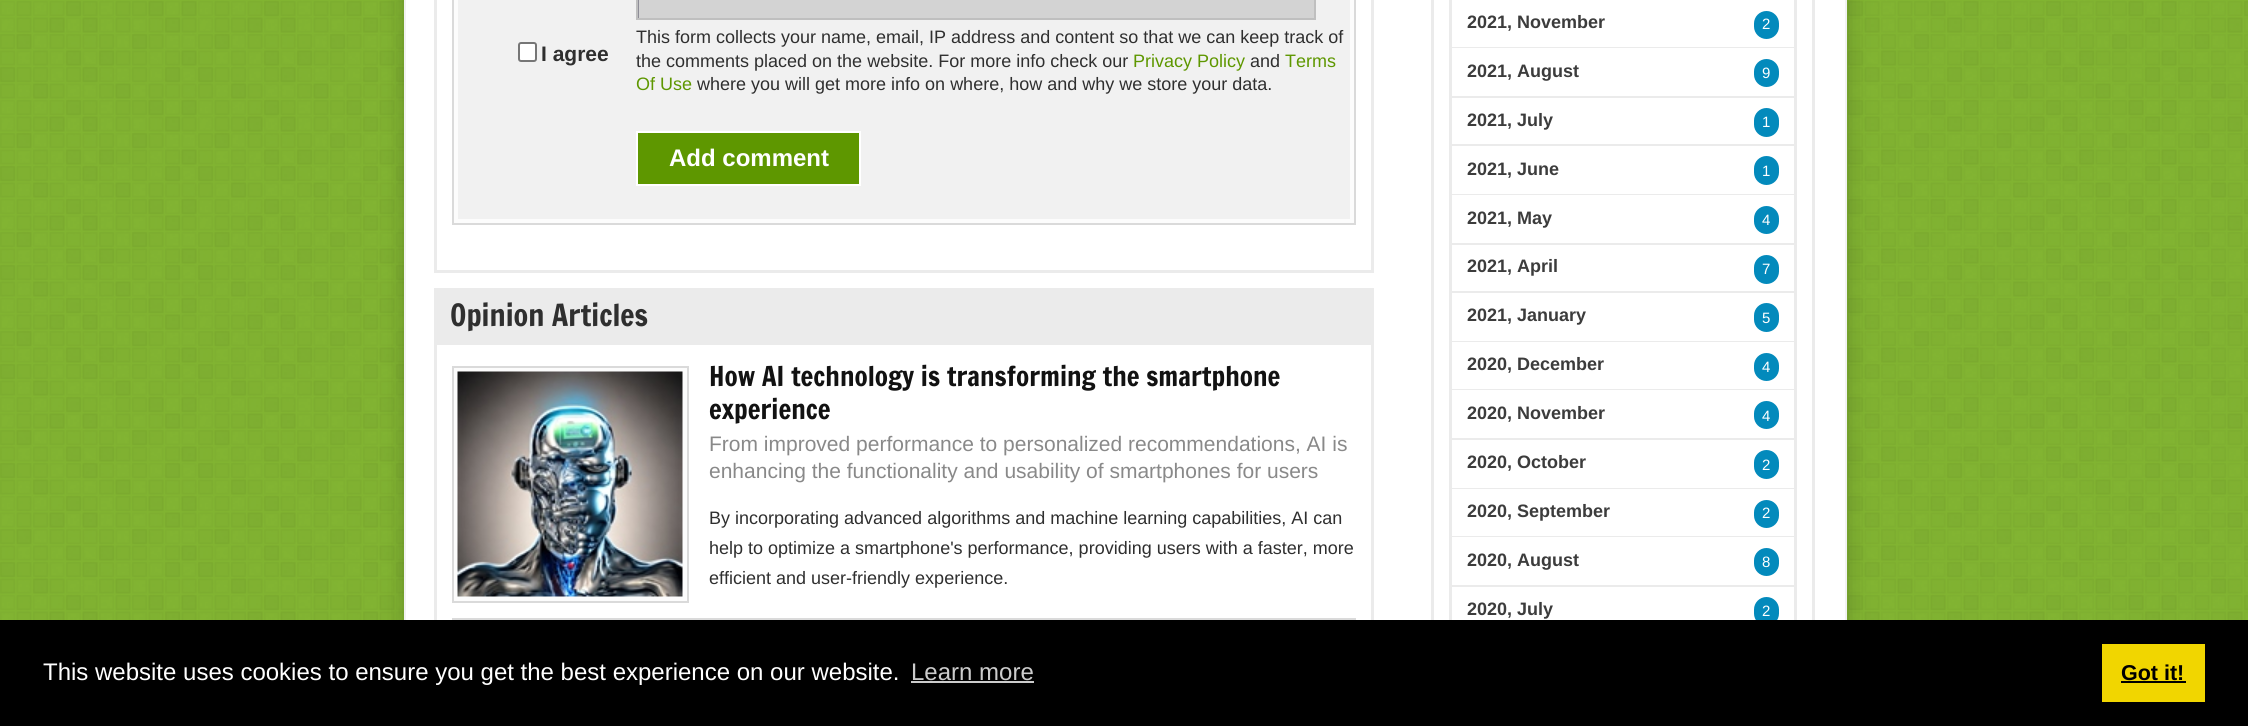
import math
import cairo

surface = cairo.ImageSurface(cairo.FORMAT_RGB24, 2248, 726)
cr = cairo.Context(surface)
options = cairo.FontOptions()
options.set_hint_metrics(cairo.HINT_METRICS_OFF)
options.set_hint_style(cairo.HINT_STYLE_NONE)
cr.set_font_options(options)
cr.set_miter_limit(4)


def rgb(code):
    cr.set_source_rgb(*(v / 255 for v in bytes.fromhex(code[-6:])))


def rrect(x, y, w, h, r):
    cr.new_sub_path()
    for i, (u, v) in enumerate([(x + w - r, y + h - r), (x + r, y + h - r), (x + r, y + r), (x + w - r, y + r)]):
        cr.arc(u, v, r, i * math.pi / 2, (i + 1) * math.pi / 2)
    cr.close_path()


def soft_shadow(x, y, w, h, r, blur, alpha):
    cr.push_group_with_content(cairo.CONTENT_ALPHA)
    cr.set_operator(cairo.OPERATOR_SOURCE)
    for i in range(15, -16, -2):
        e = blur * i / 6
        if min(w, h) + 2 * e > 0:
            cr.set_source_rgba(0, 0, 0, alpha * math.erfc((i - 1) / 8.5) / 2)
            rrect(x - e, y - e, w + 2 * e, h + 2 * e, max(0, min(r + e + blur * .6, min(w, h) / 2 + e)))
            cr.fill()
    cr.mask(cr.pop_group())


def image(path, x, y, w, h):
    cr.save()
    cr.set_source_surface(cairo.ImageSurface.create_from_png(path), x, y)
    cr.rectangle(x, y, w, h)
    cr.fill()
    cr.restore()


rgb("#ffffff")
cr.paint()
image("img/1.png", 0, 0, 2248, 620)
rgb("#000000")
soft_shadow(404, -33, 1443, 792, 0, 11, 0.2)
rgb("#ffffff")
cr.rectangle(406, 0, 1439, 620)
cr.fill()
cr.rectangle(405, -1, 1441, 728)
rgb("#f2f2f2")
cr.stroke()
cr.rectangle(435.5, -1.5, 937, 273)
rgb("#ebebeb")
cr.set_line_width(3)
cr.stroke()
rgb("#fcfcfc")
cr.rectangle(453, -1, 902, 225)
cr.fill_preserve()
rgb("#dadada")
cr.set_line_width(2)
cr.stroke()
rgb("#f1f1f1")
cr.rectangle(458, 0, 892, 219)
cr.fill()
rgb("#d3d3d3")
cr.rectangle(639, 0, 675, 18)
cr.fill()
cr.save()
cr.rectangle(638, 0, 676, 18)
cr.clip()
rgb("#8e8d97")
cr.set_fill_rule(cairo.FILL_RULE_EVEN_ODD)
cr.new_path()
cr.move_to(489, -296)
cr.line_to(1462, -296)
cr.line_to(1462, 166)
cr.line_to(489, 166)
cr.close_path()
cr.move_to(639, -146)
cr.line_to(1316, -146)
cr.line_to(1316, 20)
cr.line_to(639, 20)
cr.close_path()
cr.fill()
cr.restore()
cr.rectangle(637, -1, 678, 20)
rgb("#bfbfbf")
cr.stroke()
rgb("#ffffff")
rrect(519, 43, 17, 18, 2)
cr.fill_preserve()
rgb("#767676")
cr.stroke()
rgb("#5e9700")
cr.rectangle(637, 132, 223, 53)
cr.fill_preserve()
rgb("#ffffff")
cr.stroke()
cr.rectangle(435.5, 289.5, 937, 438)
rgb("#ebebeb")
cr.set_line_width(3)
cr.stroke()
cr.rectangle(437, 291, 934, 54)
cr.fill()
rgb("#fcfcfc")
cr.rectangle(453, 367, 235, 235)
cr.fill_preserve()
rgb("#dadada")
cr.set_line_width(2)
cr.stroke()
image("img/2.png", 457, 371, 226, 226)
cr.rectangle(453, 619, 902, 55)
cr.stroke()
cr.rectangle(1432.5, -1.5, 381, 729)
rgb("#ebebeb")
cr.set_line_width(3)
cr.stroke()
cr.rectangle(1450.5, -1.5, 345, 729)
cr.stroke()
rgb("#038abc")
rrect(1754, 11, 25, 28, 12.5)
cr.fill()
rgb("#ebebeb")
cr.rectangle(1452, 47, 342, 1)
cr.fill()
rgb("#038abc")
rrect(1754, 59, 25, 28, 12.5)
cr.fill()
rgb("#ebebeb")
cr.rectangle(1452, 96, 342, 2)
cr.fill()
rgb("#038abc")
rrect(1754, 108, 25, 29, 12.5)
cr.fill()
rgb("#ebebeb")
cr.rectangle(1452, 144, 342, 2)
cr.fill()
rgb("#038abc")
rrect(1754, 156, 25, 29, 12.5)
cr.fill()
rgb("#ebebeb")
cr.rectangle(1452, 194, 342, 1)
cr.fill()
rgb("#038abc")
rrect(1754, 206, 25, 28, 12.5)
cr.fill()
rgb("#ebebeb")
cr.rectangle(1452, 243, 342, 2)
cr.fill()
rgb("#038abc")
rrect(1754, 255, 25, 29, 12.5)
cr.fill()
rgb("#ebebeb")
cr.rectangle(1452, 291, 342, 2)
cr.fill()
rgb("#038abc")
rrect(1754, 303, 25, 29, 12.5)
cr.fill()
rgb("#ebebeb")
cr.rectangle(1452, 341, 342, 1)
cr.fill()
rgb("#038abc")
rrect(1754, 353, 25, 28, 12.5)
cr.fill()
rgb("#ebebeb")
cr.rectangle(1452, 389, 342, 1)
cr.fill()
rgb("#038abc")
rrect(1754, 401, 25, 28, 12.5)
cr.fill()
rgb("#ebebeb")
cr.rectangle(1452, 438, 342, 2)
cr.fill()
rgb("#038abc")
rrect(1754, 450, 25, 29, 12.5)
cr.fill()
rgb("#ebebeb")
cr.rectangle(1452, 488, 342, 1)
cr.fill()
rgb("#038abc")
rrect(1754, 500, 25, 28, 12.5)
cr.fill()
rgb("#ebebeb")
cr.rectangle(1452, 536, 342, 1)
cr.fill()
rgb("#038abc")
rrect(1754, 548, 25, 28, 12.5)
cr.fill()
rgb("#ebebeb")
cr.rectangle(1452, 585, 342, 2)
cr.fill()
rgb("#038abc")
rrect(1754, 597, 25, 29, 12.5)
cr.fill()
for x, y, w, h, color in [
    (0, 620, 2248, 106, "#000000"),
    (911, 681, 123, 2, "#cccccc"),
    (2102, 644, 103, 58, "#f1d600"),
    (2121, 681, 65, 2, "#000000"),
]:
    rgb(color)
    cr.rectangle(x, y, w, h)
    cr.fill()
cr.select_font_face("Liberation Sans", cairo.FONT_SLANT_NORMAL, cairo.FONT_WEIGHT_BOLD)
cr.set_font_size(21)
rgb("#2f2f2f")
cr.move_to(541, 61)
cr.show_text("I agree")
cr.select_font_face("Liberation Sans")
cr.set_font_size(18)
cr.move_to(636, 43)
cr.show_text("This form collects your name, email, IP address and content so that we can keep track of")
cr.move_to(636, 67)
cr.show_text("the comments placed on the website. For more info check our")
rgb("#5e9700")
cr.move_to(1133, 67)
cr.show_text("Privacy Policy")
rgb("#2f2f2f")
cr.move_to(1250, 67)
cr.show_text("and")
rgb("#5e9700")
cr.move_to(1285, 67)
cr.show_text("Terms")
cr.move_to(636, 90)
cr.show_text("Of Use")
rgb("#2f2f2f")
cr.move_to(697, 90)
cr.show_text("where you will get more info on where, how and why we store your data.")
cr.select_font_face("Liberation Sans", cairo.FONT_SLANT_NORMAL, cairo.FONT_WEIGHT_BOLD)
cr.set_font_size(24)
rgb("#ffffff")
cr.move_to(669, 166)
cr.show_text("Add comment")
cr.select_font_face("Francois One")
cr.set_font_size(30)
rgb("#2f2f2f")
cr.move_to(450, 326)
cr.show_text("Opinion Articles")
cr.set_font_size(27)
rgb("#121212")
cr.move_to(709, 386)
cr.show_text("How AI technology is transforming the smartphone")
cr.move_to(709, 419)
cr.show_text("experience")
cr.select_font_face("Liberation Sans")
cr.set_font_size(21)
rgb("#898989")
cr.move_to(709, 451)
cr.show_text("From improved performance to personalized recommendations, AI is")
cr.move_to(709, 478)
cr.show_text("enhancing the functionality and usability of smartphones for users")
cr.set_font_size(18)
rgb("#2f2f2f")
for x, y, s in [
    (709, 524, "By incorporating advanced algorithms and machine learning capabilities, AI can"),
    (709, 554, "help to optimize a smartphone's performance, providing users with a faster, more"),
    (709, 584, "efficient and user-friendly experience."),
]:
    cr.move_to(x, y)
    cr.show_text(s)
cr.select_font_face("Liberation Sans", cairo.FONT_SLANT_NORMAL, cairo.FONT_WEIGHT_BOLD)
rgb("#3c3c3c")
cr.move_to(1467, 28)
cr.show_text("2021, November")
cr.select_font_face("Liberation Sans")
cr.set_font_size(15)
rgb("#ffffff")
cr.move_to(1762, 29)
cr.show_text("2")
cr.select_font_face("Liberation Sans", cairo.FONT_SLANT_NORMAL, cairo.FONT_WEIGHT_BOLD)
cr.set_font_size(18)
rgb("#3c3c3c")
cr.move_to(1467, 77)
cr.show_text("2021, August")
cr.select_font_face("Liberation Sans")
cr.set_font_size(15)
rgb("#ffffff")
cr.move_to(1762, 78)
cr.show_text("9")
cr.select_font_face("Liberation Sans", cairo.FONT_SLANT_NORMAL, cairo.FONT_WEIGHT_BOLD)
cr.set_font_size(18)
rgb("#3c3c3c")
cr.move_to(1467, 126)
cr.show_text("2021, July")
cr.select_font_face("Liberation Sans")
cr.set_font_size(15)
rgb("#ffffff")
cr.move_to(1762, 127)
cr.show_text("1")
cr.select_font_face("Liberation Sans", cairo.FONT_SLANT_NORMAL, cairo.FONT_WEIGHT_BOLD)
cr.set_font_size(18)
rgb("#3c3c3c")
cr.move_to(1467, 175)
cr.show_text("2021, June")
cr.select_font_face("Liberation Sans")
cr.set_font_size(15)
rgb("#ffffff")
cr.move_to(1762, 176)
cr.show_text("1")
cr.select_font_face("Liberation Sans", cairo.FONT_SLANT_NORMAL, cairo.FONT_WEIGHT_BOLD)
cr.set_font_size(18)
rgb("#3c3c3c")
cr.move_to(1467, 224)
cr.show_text("2021, May")
cr.select_font_face("Liberation Sans")
cr.set_font_size(15)
rgb("#ffffff")
cr.move_to(1762, 225)
cr.show_text("4")
cr.select_font_face("Liberation Sans", cairo.FONT_SLANT_NORMAL, cairo.FONT_WEIGHT_BOLD)
cr.set_font_size(18)
rgb("#3c3c3c")
cr.move_to(1467, 272)
cr.show_text("2021, April")
cr.select_font_face("Liberation Sans")
cr.set_font_size(15)
rgb("#ffffff")
cr.move_to(1762, 274)
cr.show_text("7")
cr.select_font_face("Liberation Sans", cairo.FONT_SLANT_NORMAL, cairo.FONT_WEIGHT_BOLD)
cr.set_font_size(18)
rgb("#3c3c3c")
cr.move_to(1467, 321)
cr.show_text("2021, January")
cr.select_font_face("Liberation Sans")
cr.set_font_size(15)
rgb("#ffffff")
cr.move_to(1762, 323)
cr.show_text("5")
cr.select_font_face("Liberation Sans", cairo.FONT_SLANT_NORMAL, cairo.FONT_WEIGHT_BOLD)
cr.set_font_size(18)
rgb("#3c3c3c")
cr.move_to(1467, 370)
cr.show_text("2020, December")
cr.select_font_face("Liberation Sans")
cr.set_font_size(15)
rgb("#ffffff")
cr.move_to(1762, 372)
cr.show_text("4")
cr.select_font_face("Liberation Sans", cairo.FONT_SLANT_NORMAL, cairo.FONT_WEIGHT_BOLD)
cr.set_font_size(18)
rgb("#3c3c3c")
cr.move_to(1467, 419)
cr.show_text("2020, November")
cr.select_font_face("Liberation Sans")
cr.set_font_size(15)
rgb("#ffffff")
cr.move_to(1762, 421)
cr.show_text("4")
cr.select_font_face("Liberation Sans", cairo.FONT_SLANT_NORMAL, cairo.FONT_WEIGHT_BOLD)
cr.set_font_size(18)
rgb("#3c3c3c")
cr.move_to(1467, 468)
cr.show_text("2020, October")
cr.select_font_face("Liberation Sans")
cr.set_font_size(15)
rgb("#ffffff")
cr.move_to(1762, 470)
cr.show_text("2")
cr.select_font_face("Liberation Sans", cairo.FONT_SLANT_NORMAL, cairo.FONT_WEIGHT_BOLD)
cr.set_font_size(18)
rgb("#3c3c3c")
cr.move_to(1467, 517)
cr.show_text("2020, September")
cr.select_font_face("Liberation Sans")
cr.set_font_size(15)
rgb("#ffffff")
cr.move_to(1762, 518)
cr.show_text("2")
cr.select_font_face("Liberation Sans", cairo.FONT_SLANT_NORMAL, cairo.FONT_WEIGHT_BOLD)
cr.set_font_size(18)
rgb("#3c3c3c")
cr.move_to(1467, 566)
cr.show_text("2020, August")
cr.select_font_face("Liberation Sans")
cr.set_font_size(15)
rgb("#ffffff")
cr.move_to(1762, 567)
cr.show_text("8")
cr.select_font_face("Liberation Sans", cairo.FONT_SLANT_NORMAL, cairo.FONT_WEIGHT_BOLD)
cr.set_font_size(18)
rgb("#3c3c3c")
cr.move_to(1467, 615)
cr.show_text("2020, July")
cr.select_font_face("Liberation Sans")
cr.set_font_size(15)
rgb("#ffffff")
cr.move_to(1762, 616)
cr.show_text("2")
cr.set_font_size(24)
cr.move_to(43, 680)
cr.show_text("This website uses cookies to ensure you get the best experience on our website.")
rgb("#cccccc")
cr.move_to(911, 680)
cr.show_text("Learn more")
cr.select_font_face("Liberation Sans", cairo.FONT_SLANT_NORMAL, cairo.FONT_WEIGHT_BOLD)
cr.set_font_size(21.5)
rgb("#000000")
cr.move_to(2121, 680)
cr.show_text("Got it!")
surface.write_to_png("page.png")
